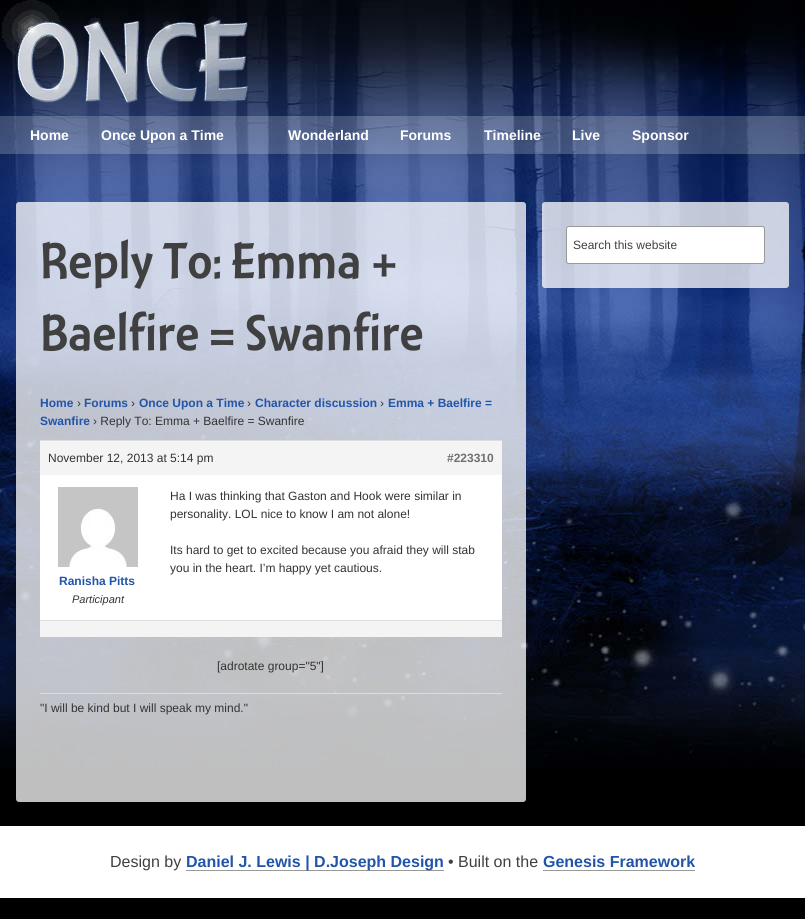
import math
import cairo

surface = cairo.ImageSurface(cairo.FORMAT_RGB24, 805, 919)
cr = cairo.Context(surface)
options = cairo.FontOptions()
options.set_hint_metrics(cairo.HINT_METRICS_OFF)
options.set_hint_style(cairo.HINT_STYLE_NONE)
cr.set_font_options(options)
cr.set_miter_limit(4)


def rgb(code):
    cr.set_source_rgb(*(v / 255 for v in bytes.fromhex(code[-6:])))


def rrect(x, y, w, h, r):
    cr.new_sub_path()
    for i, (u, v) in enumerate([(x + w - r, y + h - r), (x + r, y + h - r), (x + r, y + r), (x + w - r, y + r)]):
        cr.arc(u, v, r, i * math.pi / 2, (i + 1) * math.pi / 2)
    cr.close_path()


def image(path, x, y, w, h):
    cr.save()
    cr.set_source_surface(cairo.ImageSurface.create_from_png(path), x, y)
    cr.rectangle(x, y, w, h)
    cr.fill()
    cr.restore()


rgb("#000000")
cr.paint()
image("img/1.png", 0, 0, 805, 767)
image("img/2.png", 2, 0, 246, 104)
cr.set_source_rgba(1, 1, 1, 0.2)
cr.rectangle(0, 116, 805, 38)
cr.fill()
cr.set_source_rgba(1, 1, 1, 0.75)
rrect(16, 202, 510, 600, 3)
cr.fill()
for x, y, w, h, color in [
    (40, 441, 462, 34, "#f4f4f4"),
    (40, 440, 462, 1, "#dddddd"),
    (40, 475, 462, 145, "#ffffff"),
]:
    rgb(color)
    cr.rectangle(x, y, w, h)
    cr.fill()
image("img/3.png", 58, 487, 80, 80)
for x, y, w, h, color in [
    (40, 621, 462, 16, "#f4f4f4"),
    (40, 620, 462, 1, "#dddddd"),
    (40, 693, 462, 1, "#dddddd"),
]:
    rgb(color)
    cr.rectangle(x, y, w, h)
    cr.fill()
cr.set_source_rgba(1, 1, 1, 0.75)
rrect(542, 202, 247, 86, 3)
cr.fill()
rgb("#ffffff")
rrect(566.5, 226.5, 198, 37, 2.5)
cr.fill_preserve()
rgb("#999999")
cr.set_line_width(1)
cr.stroke()
for x, y, w, h, color in [
    (0, 826, 805, 72, "#ffffff"),
    (186, 870, 258, 1, "#999999"),
    (543, 870, 152, 1, "#999999"),
]:
    rgb(color)
    cr.rectangle(x, y, w, h)
    cr.fill()
cr.select_font_face("Liberation Sans", cairo.FONT_SLANT_NORMAL, cairo.FONT_WEIGHT_BOLD)
cr.set_font_size(14)
rgb("#ffffff")
for x, y, s in [
    (30, 140, "Home"),
    (101, 140, "Once Upon a Time"),
    (288, 140, "Wonderland"),
    (400, 140, "Forums"),
    (484, 140, "Timeline"),
    (572, 140, "Live"),
    (632, 140, "Sponsor"),
]:
    cr.move_to(x, y)
    cr.show_text(s)
cr.select_font_face("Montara")
cr.set_font_size(53)
rgb("#404040")
cr.move_to(40, 278)
cr.show_text("Reply To: Emma +")
cr.move_to(40, 350)
cr.show_text("Baelfire = Swanfire")
cr.select_font_face("Liberation Sans", cairo.FONT_SLANT_NORMAL, cairo.FONT_WEIGHT_BOLD)
cr.set_font_size(12)
rgb("#2255aa")
cr.move_to(40, 407)
cr.show_text("Home")
cr.select_font_face("Liberation Sans")
rgb("#333333")
cr.move_to(77, 407)
cr.show_text("›")
cr.select_font_face("Liberation Sans", cairo.FONT_SLANT_NORMAL, cairo.FONT_WEIGHT_BOLD)
rgb("#2255aa")
cr.move_to(84, 407)
cr.show_text("Forums")
cr.select_font_face("Liberation Sans")
rgb("#333333")
cr.move_to(131, 407)
cr.show_text("›")
cr.select_font_face("Liberation Sans", cairo.FONT_SLANT_NORMAL, cairo.FONT_WEIGHT_BOLD)
rgb("#2255aa")
cr.move_to(139, 407)
cr.show_text("Once Upon a Time")
cr.select_font_face("Liberation Sans")
rgb("#333333")
cr.move_to(247, 407)
cr.show_text("›")
cr.select_font_face("Liberation Sans", cairo.FONT_SLANT_NORMAL, cairo.FONT_WEIGHT_BOLD)
rgb("#2255aa")
cr.move_to(255, 407)
cr.show_text("Character discussion")
cr.select_font_face("Liberation Sans")
rgb("#333333")
cr.move_to(380, 407)
cr.show_text("›")
cr.select_font_face("Liberation Sans", cairo.FONT_SLANT_NORMAL, cairo.FONT_WEIGHT_BOLD)
rgb("#2255aa")
cr.move_to(388, 407)
cr.show_text("Emma + Baelfire =")
cr.move_to(40, 425)
cr.show_text("Swanfire")
cr.select_font_face("Liberation Sans")
rgb("#333333")
cr.move_to(93, 425)
cr.show_text("› Reply To: Emma + Baelfire = Swanfire")
cr.move_to(48, 462)
cr.show_text("November 12, 2013 at 5:14 pm")
cr.select_font_face("Liberation Sans", cairo.FONT_SLANT_NORMAL, cairo.FONT_WEIGHT_BOLD)
rgb("#707070")
cr.move_to(447, 462)
cr.show_text("#223310")
cr.select_font_face("Liberation Sans")
rgb("#333333")
for x, y, s in [
    (170, 500, "Ha I was thinking that Gaston and Hook were similar in"),
    (170, 518, "personality. LOL nice to know I am not alone!"),
    (170, 554, "Its hard to get to excited because you afraid they will stab"),
    (170, 572, "you in the heart. I’m happy yet cautious."),
]:
    cr.move_to(x, y)
    cr.show_text(s)
cr.select_font_face("Liberation Sans", cairo.FONT_SLANT_NORMAL, cairo.FONT_WEIGHT_BOLD)
rgb("#2255aa")
cr.move_to(59, 585)
cr.show_text("Ranisha Pitts")
cr.select_font_face("Liberation Sans", cairo.FONT_SLANT_ITALIC)
cr.set_font_size(11)
rgb("#333333")
cr.move_to(72, 603)
cr.show_text("Participant")
cr.select_font_face("Liberation Sans")
cr.set_font_size(12)
cr.move_to(217, 670)
cr.show_text("[adrotate group=\"5\"]")
cr.move_to(40, 712)
cr.show_text("\"I will be kind but I will speak my mind.\"")
rgb("#404040")
cr.move_to(573, 249)
cr.show_text("Search this website")
cr.set_font_size(16)
cr.move_to(110, 867)
cr.show_text("Design by")
cr.select_font_face("Liberation Sans", cairo.FONT_SLANT_NORMAL, cairo.FONT_WEIGHT_BOLD)
rgb("#2255aa")
cr.move_to(186, 867)
cr.show_text("Daniel J. Lewis | D.Joseph Design")
cr.select_font_face("Liberation Sans")
rgb("#404040")
cr.move_to(448, 867)
cr.show_text("• Built on the")
cr.select_font_face("Liberation Sans", cairo.FONT_SLANT_NORMAL, cairo.FONT_WEIGHT_BOLD)
rgb("#2255aa")
cr.move_to(543, 867)
cr.show_text("Genesis Framework")
surface.write_to_png("page.png")
